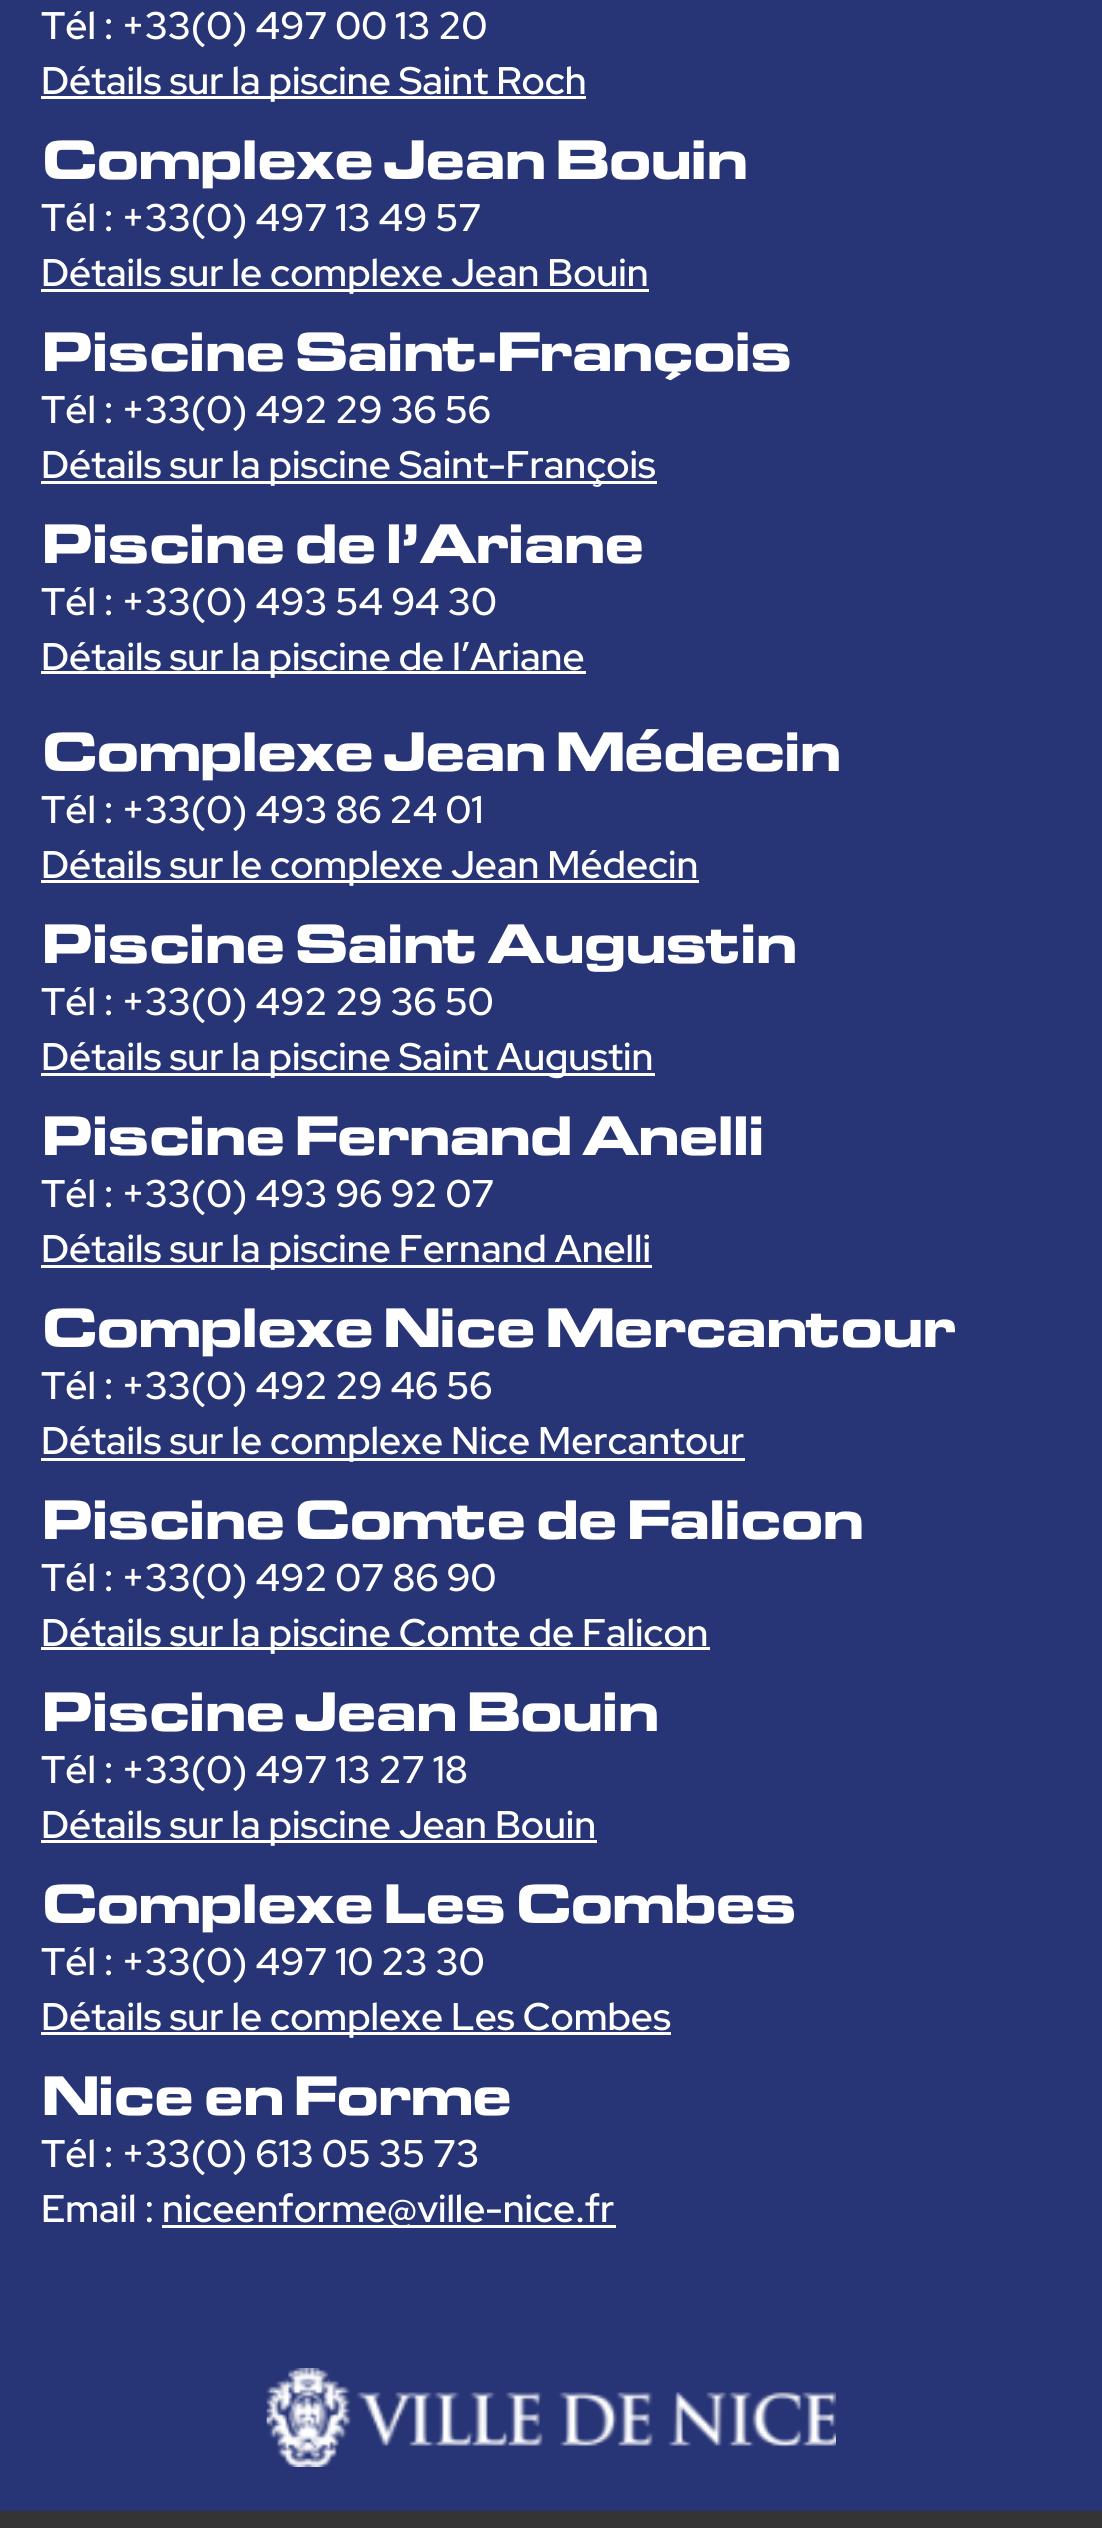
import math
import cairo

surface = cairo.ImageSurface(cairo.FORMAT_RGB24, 1102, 2528)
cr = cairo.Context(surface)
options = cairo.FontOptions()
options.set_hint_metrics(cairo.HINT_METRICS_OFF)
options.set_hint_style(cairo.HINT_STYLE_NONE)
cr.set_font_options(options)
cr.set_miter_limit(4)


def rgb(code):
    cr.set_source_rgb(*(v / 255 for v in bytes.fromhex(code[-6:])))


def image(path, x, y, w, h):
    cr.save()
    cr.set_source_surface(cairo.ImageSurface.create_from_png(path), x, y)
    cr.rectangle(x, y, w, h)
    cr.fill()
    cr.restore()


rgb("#343434")
cr.paint()
for x, y, w, h, color in [
    (0, 0, 1102, 2511, "#273475"),
    (41, 96, 545, 3, "#ffffff"),
    (41, 289, 608, 3, "#ffffff"),
    (41, 481, 616, 3, "#ffffff"),
    (41, 671, 545, 3, "#ffffff"),
    (41, 880, 658, 3, "#ffffff"),
    (41, 1073, 614, 3, "#ffffff"),
    (41, 1265, 611, 3, "#ffffff"),
    (41, 1458, 704, 3, "#ffffff"),
    (41, 1647, 669, 3, "#ffffff"),
    (41, 1840, 556, 3, "#ffffff"),
    (41, 2032, 630, 3, "#ffffff"),
    (162, 2225, 454, 3, "#ffffff"),
]:
    rgb(color)
    cr.rectangle(x, y, w, h)
    cr.fill()
image("img/1.png", 266, 2368, 570, 99)
cr.select_font_face("Red Hat Display SemiBold")
cr.set_font_size(38.5)
cr.move_to(41, 39)
cr.show_text("Tél : +33(0) 497 00 13 20")
cr.move_to(41, 94)
cr.show_text("Détails sur la piscine Saint Roch")
cr.select_font_face("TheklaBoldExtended", cairo.FONT_SLANT_NORMAL, cairo.FONT_WEIGHT_BOLD)
cr.set_font_size(49.5)
cr.move_to(41, 179)
cr.show_text("Complexe Jean Bouin")
cr.select_font_face("Red Hat Display SemiBold")
cr.set_font_size(38.5)
cr.move_to(41, 231)
cr.show_text("Tél : +33(0) 497 13 49 57")
cr.move_to(41, 286)
cr.show_text("Détails sur le complexe Jean Bouin")
cr.select_font_face("TheklaBoldExtended", cairo.FONT_SLANT_NORMAL, cairo.FONT_WEIGHT_BOLD)
cr.set_font_size(49.5)
cr.move_to(41, 371)
cr.show_text("Piscine Saint-François")
cr.select_font_face("Red Hat Display SemiBold")
cr.set_font_size(38.5)
cr.move_to(41, 423)
cr.show_text("Tél : +33(0) 492 29 36 56")
cr.move_to(41, 478)
cr.show_text("Détails sur la piscine Saint-François")
cr.select_font_face("TheklaBoldExtended", cairo.FONT_SLANT_NORMAL, cairo.FONT_WEIGHT_BOLD)
cr.set_font_size(49.5)
cr.move_to(41, 563)
cr.show_text("Piscine de l’Ariane")
cr.select_font_face("Red Hat Display SemiBold")
cr.set_font_size(38.5)
cr.move_to(41, 615)
cr.show_text("Tél : +33(0) 493 54 94 30")
cr.move_to(41, 670)
cr.show_text("Détails sur la piscine de l’Ariane")
cr.select_font_face("TheklaBoldExtended", cairo.FONT_SLANT_NORMAL, cairo.FONT_WEIGHT_BOLD)
cr.set_font_size(49.5)
cr.move_to(41, 771)
cr.show_text("Complexe Jean Médecin")
cr.select_font_face("Red Hat Display SemiBold")
cr.set_font_size(38.5)
cr.move_to(41, 823)
cr.show_text("Tél : +33(0) 493 86 24 01")
cr.move_to(41, 878)
cr.show_text("Détails sur le complexe Jean Médecin")
cr.select_font_face("TheklaBoldExtended", cairo.FONT_SLANT_NORMAL, cairo.FONT_WEIGHT_BOLD)
cr.set_font_size(49.5)
cr.move_to(41, 963)
cr.show_text("Piscine Saint Augustin")
cr.select_font_face("Red Hat Display SemiBold")
cr.set_font_size(38.5)
cr.move_to(41, 1015)
cr.show_text("Tél : +33(0) 492 29 36 50")
cr.move_to(41, 1070)
cr.show_text("Détails sur la piscine Saint Augustin")
cr.select_font_face("TheklaBoldExtended", cairo.FONT_SLANT_NORMAL, cairo.FONT_WEIGHT_BOLD)
cr.set_font_size(49.5)
cr.move_to(41, 1155)
cr.show_text("Piscine Fernand Anelli")
cr.select_font_face("Red Hat Display SemiBold")
cr.set_font_size(38.5)
cr.move_to(41, 1207)
cr.show_text("Tél : +33(0) 493 96 92 07")
cr.move_to(41, 1262)
cr.show_text("Détails sur la piscine Fernand Anelli")
cr.select_font_face("TheklaBoldExtended", cairo.FONT_SLANT_NORMAL, cairo.FONT_WEIGHT_BOLD)
cr.set_font_size(49.5)
cr.move_to(41, 1347)
cr.show_text("Complexe Nice Mercantour")
cr.select_font_face("Red Hat Display SemiBold")
cr.set_font_size(38.5)
cr.move_to(41, 1399)
cr.show_text("Tél : +33(0) 492 29 46 56")
cr.move_to(41, 1454)
cr.show_text("Détails sur le complexe Nice Mercantour")
cr.select_font_face("TheklaBoldExtended", cairo.FONT_SLANT_NORMAL, cairo.FONT_WEIGHT_BOLD)
cr.set_font_size(49.5)
cr.move_to(41, 1539)
cr.show_text("Piscine Comte de Falicon")
cr.select_font_face("Red Hat Display SemiBold")
cr.set_font_size(38.5)
cr.move_to(41, 1591)
cr.show_text("Tél : +33(0) 492 07 86 90")
cr.move_to(41, 1646)
cr.show_text("Détails sur la piscine Comte de Falicon")
cr.select_font_face("TheklaBoldExtended", cairo.FONT_SLANT_NORMAL, cairo.FONT_WEIGHT_BOLD)
cr.set_font_size(49.5)
cr.move_to(41, 1731)
cr.show_text("Piscine Jean Bouin")
cr.select_font_face("Red Hat Display SemiBold")
cr.set_font_size(38.5)
cr.move_to(41, 1783)
cr.show_text("Tél : +33(0) 497 13 27 18")
cr.move_to(41, 1838)
cr.show_text("Détails sur la piscine Jean Bouin")
cr.select_font_face("TheklaBoldExtended", cairo.FONT_SLANT_NORMAL, cairo.FONT_WEIGHT_BOLD)
cr.set_font_size(49.5)
cr.move_to(41, 1923)
cr.show_text("Complexe Les Combes")
cr.select_font_face("Red Hat Display SemiBold")
cr.set_font_size(38.5)
cr.move_to(41, 1975)
cr.show_text("Tél : +33(0) 497 10 23 30")
cr.move_to(41, 2030)
cr.show_text("Détails sur le complexe Les Combes")
cr.select_font_face("TheklaBoldExtended", cairo.FONT_SLANT_NORMAL, cairo.FONT_WEIGHT_BOLD)
cr.set_font_size(49.5)
cr.move_to(41, 2115)
cr.show_text("Nice en Forme")
cr.select_font_face("Red Hat Display SemiBold")
cr.set_font_size(38.5)
for x, y, s in [
    (41, 2167, "Tél : +33(0) 613 05 35 73"),
    (41, 2222, "Email :"),
    (162, 2222, "niceenforme@ville-nice.fr"),
]:
    cr.move_to(x, y)
    cr.show_text(s)
surface.write_to_png("page.png")
